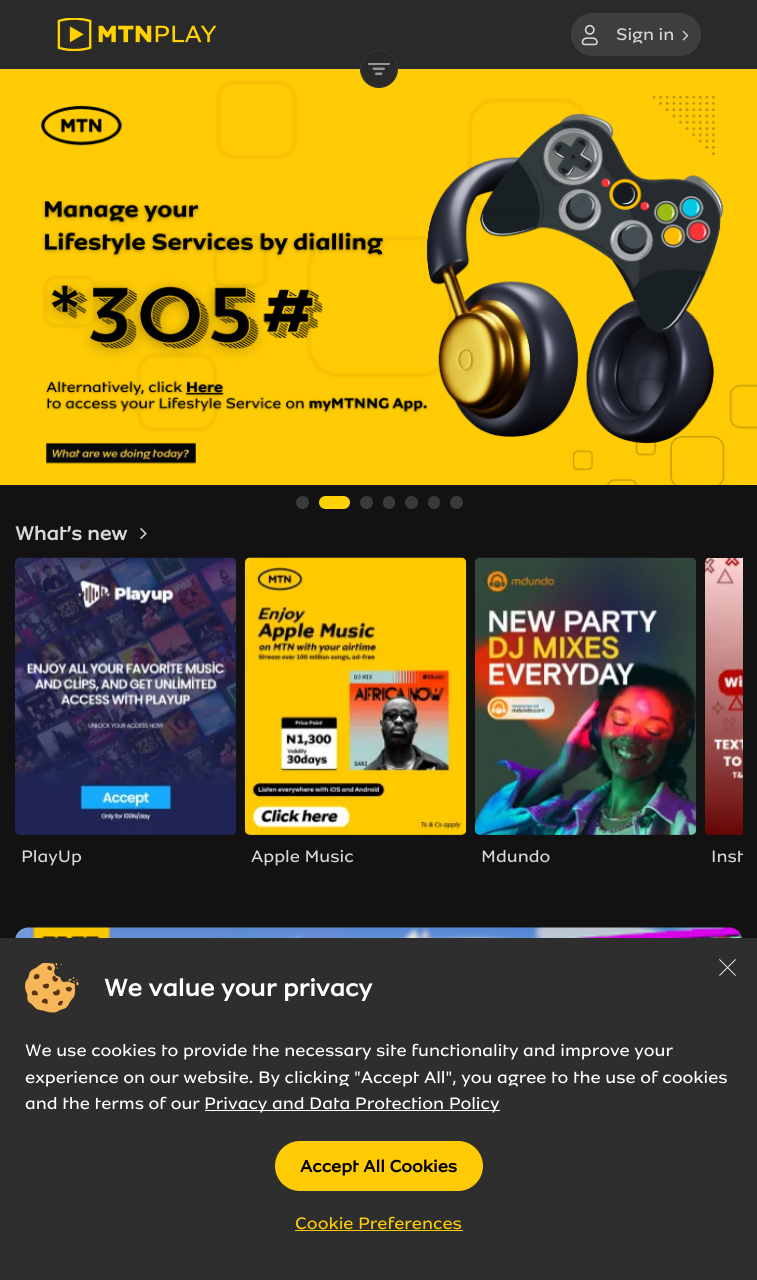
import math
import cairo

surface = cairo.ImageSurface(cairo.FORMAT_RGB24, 757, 1280)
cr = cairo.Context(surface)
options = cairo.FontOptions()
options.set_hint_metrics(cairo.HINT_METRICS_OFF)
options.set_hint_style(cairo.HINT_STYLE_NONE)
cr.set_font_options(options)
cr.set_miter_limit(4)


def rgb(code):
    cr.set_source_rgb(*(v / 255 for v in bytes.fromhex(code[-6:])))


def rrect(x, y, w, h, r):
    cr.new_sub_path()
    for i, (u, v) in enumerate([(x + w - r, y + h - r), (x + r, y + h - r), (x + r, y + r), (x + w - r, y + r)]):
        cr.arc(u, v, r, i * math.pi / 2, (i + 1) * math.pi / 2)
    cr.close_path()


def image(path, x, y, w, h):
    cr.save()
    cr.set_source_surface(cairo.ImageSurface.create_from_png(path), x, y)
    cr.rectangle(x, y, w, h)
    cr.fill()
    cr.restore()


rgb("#121212")
cr.paint()
rgb("#2a2a2a")
cr.rectangle(0, 0, 757, 69)
cr.fill()
image("img/1.png", 57, 18, 160, 33)
rgb("#3e3e3e")
rrect(571, 13, 130, 43, 21.5)
cr.fill()
image("img/2.png", 581, 24, 17, 22)
image("img/3.png", 682, 30, 7, 11)
image("img/5.png", 0, 69, 757, 416)
rgb("#2a2a2a")
cr.arc(379, 69, 18.5, 0, 2 * math.pi)
cr.fill_preserve()
rgb("#353535")
cr.set_line_width(1)
cr.stroke()
image("img/4.png", 368, 63, 22, 12)
rgb("#3a3a3a")
cr.arc(302.5, 502.5, 6.5, 0, 2 * math.pi)
cr.fill()
rgb("#ffd200")
rrect(319, 496, 31, 13, 6.5)
cr.fill()
rgb("#3a3a3a")
cr.arc(366.5, 502.5, 6.5, 0, 2 * math.pi)
cr.fill()
rrect(383, 496, 12, 13, 6)
cr.fill()
cr.arc(411.5, 502.5, 6.5, 0, 2 * math.pi)
cr.fill()
rrect(428, 496, 12, 13, 6)
cr.fill()
cr.arc(456.5, 502.5, 6.5, 0, 2 * math.pi)
cr.fill()
image("img/6.png", 140, 528, 7, 12)
image("img/7.png", 15, 557, 222, 278)
image("img/8.png", 245, 557, 222, 278)
image("img/9.png", 475, 557, 222, 278)
image("img/10.png", 705, 558, 38, 277)
image("img/11.png", 15, 927, 728, 11)
rgb("#2e2e2e")
cr.rectangle(0, 938, 757, 342)
cr.fill()
image("img/12.png", 719, 959, 17, 17)
image("img/13.png", 25, 963, 54, 50)
rgb("#ffffff")
cr.rectangle(205, 1110, 295, 1)
cr.fill()
rgb("#ffcb05")
rrect(275, 1141, 208, 50, 25)
cr.fill()
cr.rectangle(295, 1230, 168, 1)
cr.fill()
cr.select_font_face("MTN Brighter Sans")
cr.set_font_size(17.5)
rgb("#d8d8d8")
cr.move_to(616, 40)
cr.show_text("Sign in")
cr.select_font_face("MTN Brighter Sans", cairo.FONT_SLANT_NORMAL, cairo.FONT_WEIGHT_BOLD)
cr.set_font_size(20)
cr.move_to(15, 540)
cr.show_text("What’s new")
cr.select_font_face("MTN Brighter Sans")
cr.set_font_size(17.5)
for x, y, s in [
    (21, 862, "PlayUp"),
    (251, 862, "Apple Music"),
    (481, 862, "Mdundo"),
    (711, 862, "Inst"),
]:
    cr.move_to(x, y)
    cr.show_text(s)
cr.select_font_face("MTN Brighter Sans", cairo.FONT_SLANT_NORMAL, cairo.FONT_WEIGHT_BOLD)
cr.set_font_size(25)
rgb("#ffffff")
cr.move_to(104, 996)
cr.show_text("We value your privacy")
cr.select_font_face("MTN Brighter Sans")
cr.set_font_size(17.5)
for x, y, s in [
    (25, 1056, "We use cookies to provide the necessary site functionality and improve your"),
    (25, 1083, "experience on our website. By clicking \"Accept All\", you agree to the use of cookies"),
    (25, 1109, "and the terms of our"),
    (204, 1109, "Privacy and Data Protection Policy"),
]:
    cr.move_to(x, y)
    cr.show_text(s)
cr.select_font_face("MTN Brighter Sans", cairo.FONT_SLANT_NORMAL, cairo.FONT_WEIGHT_BOLD)
rgb("#000000")
cr.move_to(300, 1172)
cr.show_text("Accept All Cookies")
cr.select_font_face("MTN Brighter Sans")
rgb("#ffcb05")
cr.move_to(295, 1229)
cr.show_text("Cookie Preferences")
surface.write_to_png("page.png")
